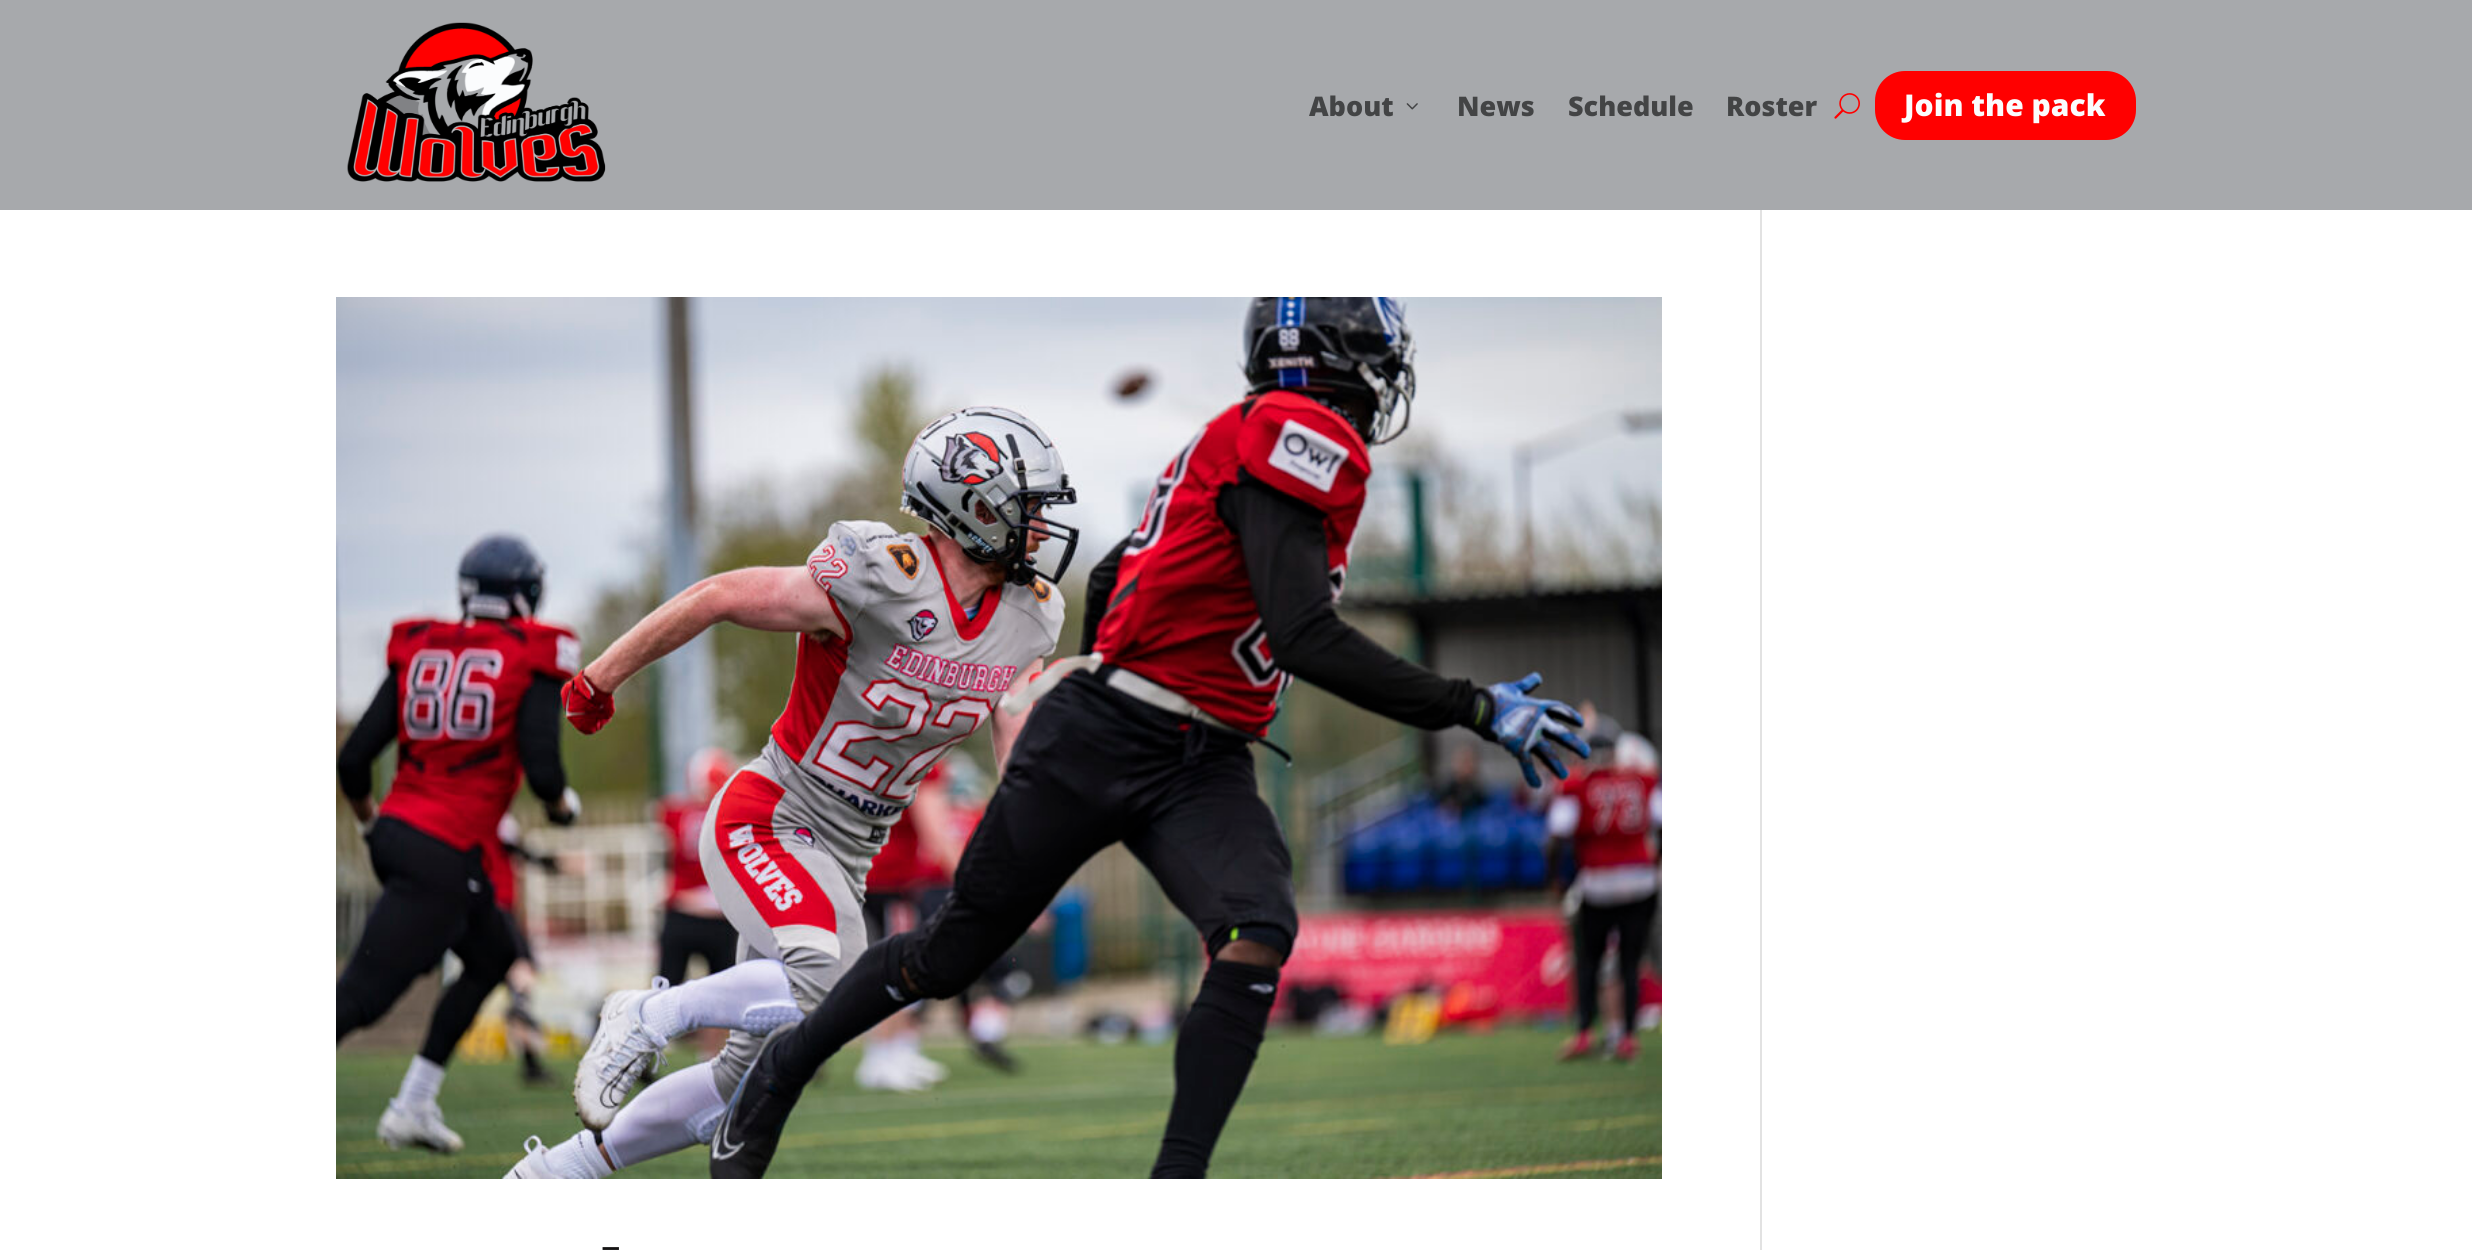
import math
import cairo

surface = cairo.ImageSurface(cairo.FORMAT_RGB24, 2472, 1250)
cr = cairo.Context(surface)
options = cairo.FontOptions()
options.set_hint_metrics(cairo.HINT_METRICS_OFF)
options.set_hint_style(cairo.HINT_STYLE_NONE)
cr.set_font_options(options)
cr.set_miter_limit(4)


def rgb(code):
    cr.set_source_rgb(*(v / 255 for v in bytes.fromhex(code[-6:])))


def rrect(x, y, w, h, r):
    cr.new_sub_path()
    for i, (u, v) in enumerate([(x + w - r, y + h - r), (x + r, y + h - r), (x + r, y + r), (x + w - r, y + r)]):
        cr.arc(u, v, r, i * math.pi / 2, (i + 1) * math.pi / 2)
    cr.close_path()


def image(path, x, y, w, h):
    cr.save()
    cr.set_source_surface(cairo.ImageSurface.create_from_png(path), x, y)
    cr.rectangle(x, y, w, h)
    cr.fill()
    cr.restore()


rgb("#ffffff")
cr.paint()
rgb("#a7a9ac")
cr.rectangle(0, 0, 2472, 210)
cr.fill()
image("img/1.png", 347, 22, 259, 160)
image("img/2.png", 1406, 103, 12, 7)
image("img/3.png", 1834, 93, 26, 26)
rgb("#ff0000")
rrect(1875, 71, 261, 69, 30)
cr.fill()
image("img/4.png", 336, 297, 1326, 882)
rgb("#e2e2e2")
cr.rectangle(1760, 210, 2, 1040)
cr.fill()
cr.select_font_face("Open Sans ExtraBold")
cr.set_font_size(27)
rgb("#434445")
for x, y, s in [
    (1309, 116, "About"),
    (1457, 116, "News"),
    (1568, 116, "Schedule"),
    (1726, 116, "Roster"),
]:
    cr.move_to(x, y)
    cr.show_text(s)
cr.set_font_size(30)
rgb("#fbfcfd")
cr.move_to(1904, 116)
cr.show_text("Join the pack")
cr.select_font_face("Open Sans")
cr.set_font_size(39)
rgb("#141313")
cr.move_to(601, 1259)
cr.show_text("–")
surface.write_to_png("page.png")
